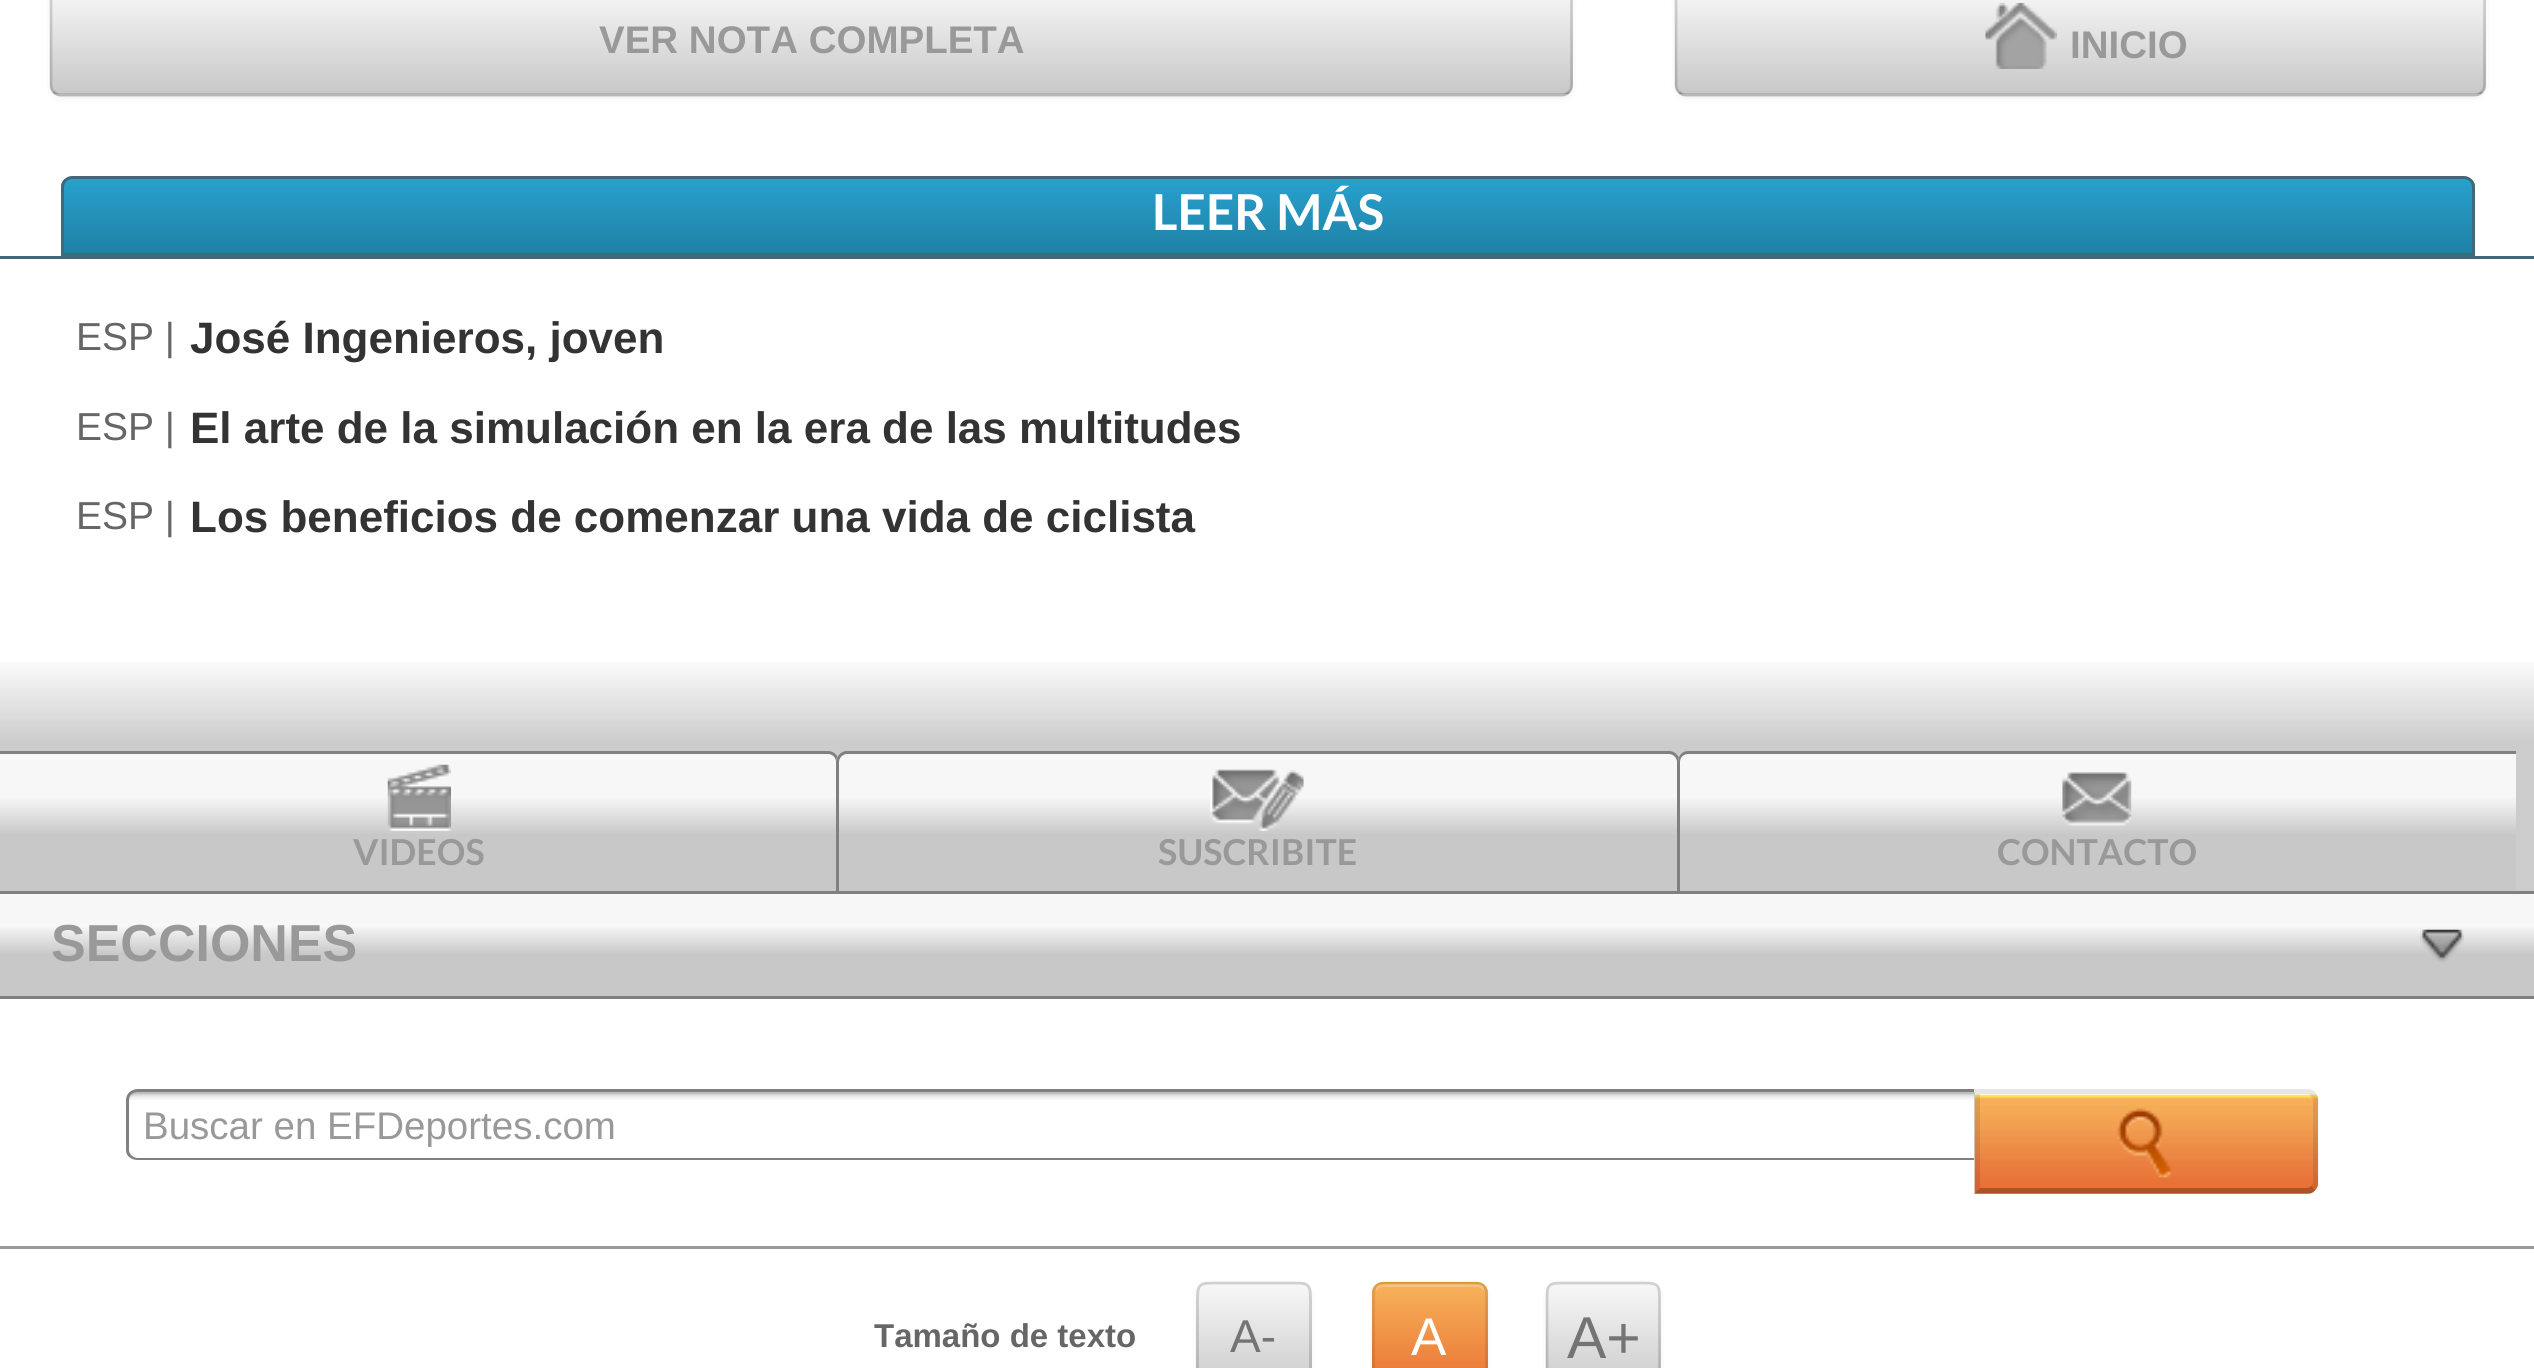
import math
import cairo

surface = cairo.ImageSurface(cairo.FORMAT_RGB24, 2534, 1368)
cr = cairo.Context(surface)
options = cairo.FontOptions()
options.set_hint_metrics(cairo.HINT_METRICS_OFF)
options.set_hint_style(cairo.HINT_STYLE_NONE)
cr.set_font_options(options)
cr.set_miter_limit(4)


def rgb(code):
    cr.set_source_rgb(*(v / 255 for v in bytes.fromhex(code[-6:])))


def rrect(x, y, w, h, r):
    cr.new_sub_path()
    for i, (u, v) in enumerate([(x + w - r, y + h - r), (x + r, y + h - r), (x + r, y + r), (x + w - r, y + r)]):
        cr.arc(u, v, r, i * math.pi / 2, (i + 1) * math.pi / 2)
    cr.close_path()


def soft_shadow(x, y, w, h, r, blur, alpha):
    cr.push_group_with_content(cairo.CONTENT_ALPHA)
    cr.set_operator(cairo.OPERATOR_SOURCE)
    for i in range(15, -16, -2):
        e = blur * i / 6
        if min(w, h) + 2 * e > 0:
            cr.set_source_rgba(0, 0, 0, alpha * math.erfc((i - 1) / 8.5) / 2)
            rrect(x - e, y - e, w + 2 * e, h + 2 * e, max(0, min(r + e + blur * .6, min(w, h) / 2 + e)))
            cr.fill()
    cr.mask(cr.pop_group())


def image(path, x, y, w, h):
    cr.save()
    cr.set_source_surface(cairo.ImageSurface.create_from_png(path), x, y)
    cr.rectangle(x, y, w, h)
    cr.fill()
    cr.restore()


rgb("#ffffff")
cr.paint()
image("img/1.png", 0, 662, 2534, 83)
rgb("#000000")
soft_shadow(50, -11, 1523, 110, 11, 3, 0.05)
rgb("#f5f5f5")
rrect(50, -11, 1523, 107, 11)
cr.fill()
cr.save()
rrect(50, -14, 1523, 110, 11)
cr.clip()
gradient = cairo.LinearGradient(811, -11, 811, 94)
gradient.add_color_stop_rgba(0, 0.969, 0.969, 0.969, 1)
gradient.add_color_stop_rgba(1, 0.784, 0.784, 0.784, 1)
cr.set_source(gradient)
cr.rectangle(50, 0, 1523, 94)
cr.fill()
cr.restore()
cr.new_path()
cr.move_to(1569, 92)
cr.curve_to(1567, 94, 1564.5, 95, 1562, 95)
cr.line_to(60.5, 95)
cr.curve_to(58, 95, 55.5, 94, 53.5, 92)
cr.set_source_rgba(0, 0, 0, 0.25)
cr.set_line_width(2.8)
cr.stroke()
cr.new_path()
cr.move_to(53.5, 92)
cr.curve_to(52, 90.5, 51, 88, 51, 85)
cr.line_to(51, -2.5)
cr.curve_to(51, -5.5, 52, -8, 53.5, -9.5)
cr.curve_to(55.5, -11.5, 58, -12.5, 60.5, -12.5)
cr.line_to(1562, -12.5)
cr.curve_to(1564.5, -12.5, 1567, -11.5, 1569, -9.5)
cr.curve_to(1570.5, -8, 1571.5, -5.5, 1571.5, -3)
cr.line_to(1571.5, 85)
cr.curve_to(1571.5, 88, 1570.5, 90.5, 1569, 92)
cr.set_source_rgba(0, 0, 0, 0.15)
cr.stroke()
rgb("#000000")
soft_shadow(1675, -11, 811, 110, 11, 3, 0.05)
rgb("#f5f5f5")
rrect(1675, -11, 811, 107, 11)
cr.fill()
cr.save()
rrect(1675, -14, 811, 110, 11)
cr.clip()
gradient = cairo.LinearGradient(2080, -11, 2080, 94)
gradient.add_color_stop_rgba(0, 0.969, 0.969, 0.969, 1)
gradient.add_color_stop_rgba(1, 0.784, 0.784, 0.784, 1)
cr.set_source(gradient)
cr.rectangle(1675, 0, 811, 94)
cr.fill()
cr.restore()
cr.new_path()
cr.move_to(2482, 92)
cr.curve_to(2480, 94, 2477.5, 95, 2475, 95)
cr.line_to(1686, 95)
cr.curve_to(1683, 95, 1680.5, 94, 1679, 92)
cr.set_source_rgba(0, 0, 0, 0.25)
cr.stroke()
cr.new_path()
cr.move_to(1679, 92)
cr.curve_to(1677, 90.5, 1676, 88, 1676, 85)
cr.line_to(1676, -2.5)
cr.curve_to(1676, -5.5, 1677, -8, 1679, -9.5)
cr.curve_to(1680.5, -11.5, 1683, -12.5, 1686, -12.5)
cr.line_to(2475, -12.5)
cr.curve_to(2477.5, -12.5, 2480, -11.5, 2482, -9.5)
cr.curve_to(2483.5, -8, 2484.5, -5.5, 2484.5, -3)
cr.line_to(2484.5, 85)
cr.curve_to(2484.5, 88, 2483.5, 90.5, 2482, 92)
cr.set_source_rgba(0, 0, 0, 0.15)
cr.stroke()
image("img/2.png", 1985, 3, 72, 66)
rgb("#40687a")
cr.rectangle(0, 256, 2534, 3)
cr.fill()
cr.save()
cr.new_path()
cr.move_to(72, 176)
cr.line_to(2464, 176)
cr.curve_to(2470, 176, 2475, 181, 2475, 187)
cr.line_to(2475, 256)
cr.line_to(61, 256)
cr.line_to(61, 187)
cr.curve_to(61, 181, 66, 176, 72, 176)
cr.close_path()
cr.clip()
gradient = cairo.LinearGradient(1268, 179, 1268, 253)
gradient.add_color_stop_rgba(0, 0.153, 0.631, 0.808, 1)
gradient.add_color_stop_rgba(1, 0.122, 0.506, 0.647, 1)
cr.set_source(gradient)
cr.rectangle(61, 179, 2414, 74)
cr.fill()
cr.restore()
cr.new_path()
cr.move_to(72, 177.5)
cr.line_to(2464, 177.5)
cr.curve_to(2469, 177.5, 2473.5, 182, 2473.5, 187)
cr.line_to(2473.5, 254.5)
cr.line_to(62.5, 254.5)
cr.line_to(62.5, 187)
cr.curve_to(62.5, 182, 67, 177.5, 72, 177.5)
cr.close_path()
cr.set_line_width(3)
cr.stroke()
rgb("#cccccc")
cr.rectangle(0, 745, 2534, 146)
cr.fill()
cr.save()
cr.new_path()
cr.move_to(0, 751)
cr.line_to(828, 751)
cr.curve_to(834, 751, 839, 756, 839, 762)
cr.line_to(839, 894)
cr.line_to(0, 894)
cr.close_path()
cr.clip()
gradient = cairo.LinearGradient(0, 891, 0, 754)
gradient.add_color_stop_rgba(0.41, 0.784, 0.784, 0.784, 1)
gradient.add_color_stop_rgba(0.69, 0.969, 0.969, 0.969, 1)
cr.set_source(gradient)
cr.rectangle(0, 754, 838, 137)
cr.fill()
cr.restore()
rgb("#808080")
cr.set_fill_rule(cairo.FILL_RULE_EVEN_ODD)
cr.new_path()
cr.move_to(0, 751)
cr.line_to(828, 751)
cr.curve_to(834, 751, 839, 756, 839, 762)
cr.line_to(839, 894)
cr.line_to(0, 894)
cr.close_path()
cr.move_to(0, 754)
cr.line_to(828, 754)
cr.curve_to(832, 754, 836, 757, 836, 762)
cr.line_to(836, 891)
cr.line_to(0, 891)
cr.close_path()
cr.fill()
image("img/3.png", 387, 764, 64, 67)
cr.save()
cr.set_fill_rule(cairo.FILL_RULE_WINDING)
cr.new_path()
cr.move_to(847, 751)
cr.line_to(1669, 751)
cr.curve_to(1675, 751, 1680, 756, 1680, 762)
cr.line_to(1680, 894)
cr.line_to(836, 894)
cr.line_to(836, 762)
cr.curve_to(836, 756, 841, 751, 847, 751)
cr.close_path()
cr.clip()
gradient = cairo.LinearGradient(839, 891, 839, 754)
gradient.add_color_stop_rgba(0.41, 0.784, 0.784, 0.784, 1)
gradient.add_color_stop_rgba(0.69, 0.969, 0.969, 0.969, 1)
cr.set_source(gradient)
cr.rectangle(836, 754, 843, 137)
cr.fill()
cr.restore()
cr.new_path()
cr.move_to(847, 752.5)
cr.line_to(1669, 752.5)
cr.curve_to(1674, 752.5, 1678.5, 757, 1678.5, 762)
cr.line_to(1678.5, 892.5)
cr.line_to(837.5, 892.5)
cr.line_to(837.5, 762)
cr.curve_to(837.5, 757, 842, 752.5, 847, 752.5)
cr.close_path()
cr.stroke()
image("img/4.png", 1210, 769, 94, 62)
cr.save()
cr.set_fill_rule(cairo.FILL_RULE_WINDING)
cr.new_path()
cr.move_to(1689, 751)
cr.line_to(2516, 751)
cr.line_to(2516, 894)
cr.line_to(1678, 894)
cr.line_to(1678, 762)
cr.curve_to(1678, 756, 1683, 751, 1689, 751)
cr.close_path()
cr.clip()
gradient = cairo.LinearGradient(1680, 891, 1680, 754)
gradient.add_color_stop_rgba(0.41, 0.784, 0.784, 0.784, 1)
gradient.add_color_stop_rgba(0.69, 0.969, 0.969, 0.969, 1)
cr.set_source(gradient)
cr.rectangle(1678, 754, 838, 137)
cr.fill()
cr.restore()
cr.new_path()
cr.move_to(1688, 751)
cr.line_to(2516, 751)
cr.line_to(2516, 894)
cr.line_to(1678, 894)
cr.line_to(1678, 762)
cr.curve_to(1678, 756, 1682, 751, 1688, 751)
cr.close_path()
cr.move_to(1688, 754)
cr.line_to(2516, 754)
cr.line_to(2516, 891)
cr.line_to(1680, 891)
cr.line_to(1680, 762)
cr.curve_to(1680, 757, 1684, 754, 1688, 754)
cr.close_path()
cr.fill()
image("img/5.png", 2062, 772, 70, 54)
gradient = cairo.LinearGradient(0, 996, 0, 894)
gradient.add_color_stop_rgba(0.41, 0.784, 0.784, 0.784, 1)
gradient.add_color_stop_rgba(0.69, 0.969, 0.969, 0.969, 1)
cr.set_source(gradient)
cr.rectangle(0, 894, 2534, 102)
cr.fill()
rgb("#808080")
cr.rectangle(2516, 891, 18, 3)
cr.fill()
cr.rectangle(0, 996, 2534, 3)
cr.fill()
image("img/6.png", 2420, 929, 44, 34)
image("img/7.png", 127, 1092, 1848, 8)
cr.set_source_rgba(0, 0, 0, 0.07)
cr.set_fill_rule(cairo.FILL_RULE_WINDING)
cr.new_path()
cr.move_to(138, 1094)
cr.line_to(1974, 1094)
cr.line_to(1974, 1158)
cr.line_to(1975, 1158)
cr.line_to(1975, 1092)
cr.line_to(137, 1092)
cr.curve_to(133, 1092, 129, 1096, 129, 1100)
cr.line_to(129, 1103)
cr.curve_to(129, 1098, 133, 1094, 138, 1094)
cr.close_path()
cr.fill()
rgb("#808080")
cr.set_fill_rule(cairo.FILL_RULE_EVEN_ODD)
cr.new_path()
cr.move_to(138, 1089)
cr.line_to(1974, 1089)
cr.line_to(1974, 1160)
cr.line_to(138, 1160)
cr.curve_to(131, 1160, 126, 1156, 126, 1150)
cr.line_to(126, 1100)
cr.curve_to(126, 1094, 131, 1089, 138, 1089)
cr.close_path()
cr.move_to(138, 1092)
cr.line_to(1974, 1092)
cr.line_to(1974, 1158)
cr.line_to(138, 1158)
cr.curve_to(133, 1158, 129, 1154, 129, 1150)
cr.line_to(129, 1100)
cr.curve_to(129, 1095, 133, 1092, 138, 1092)
cr.close_path()
cr.fill()
image("img/8.png", 1974, 1094, 345, 100)
cr.set_source_rgba(0, 0, 0, 0.1)
cr.set_fill_rule(cairo.FILL_RULE_WINDING)
cr.new_path()
cr.move_to(1980, 1094)
cr.line_to(2307, 1094)
cr.curve_to(2309, 1094, 2310, 1095, 2311, 1096)
cr.line_to(2315, 1092)
cr.curve_to(2313, 1090, 2310, 1089, 2307, 1089)
cr.line_to(1974, 1089)
cr.close_path()
cr.fill()
cr.new_path()
cr.move_to(2315, 1092)
cr.curve_to(2317, 1094, 2318, 1097, 2318, 1100)
cr.line_to(2318, 1182)
cr.curve_to(2318, 1185, 2317, 1188, 2315, 1190)
cr.line_to(2311, 1186)
cr.curve_to(2312, 1185, 2313, 1184, 2313, 1183)
cr.line_to(2313, 1099)
cr.line_to(2311, 1096)
cr.close_path()
cr.fill()
cr.set_source_rgba(0, 0, 0, 0.25)
cr.new_path()
cr.move_to(2315, 1190)
cr.curve_to(2314, 1192, 2312, 1193, 2310, 1194)
cr.line_to(1974, 1194)
cr.line_to(1980, 1188)
cr.line_to(2307, 1188)
cr.curve_to(2309, 1188, 2310, 1187, 2311, 1186)
cr.close_path()
cr.fill()
cr.set_source_rgba(0, 0, 0, 0.1)
cr.new_path()
cr.move_to(1974, 1194)
cr.line_to(1980, 1188)
cr.line_to(1980, 1094)
cr.line_to(1974, 1089)
cr.close_path()
cr.fill()
rgb("#999999")
cr.rectangle(0, 1246, 2534, 3)
cr.fill()
rgb("#000000")
soft_shadow(1196, 1284, 116, 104, 11, 3, 0.05)
rgb("#f5f5f5")
rrect(1196, 1282, 116, 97, 11)
cr.fill()
cr.save()
rrect(1196, 1282, 116, 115, 11)
cr.clip()
gradient = cairo.LinearGradient(1254, 1284, 1254, 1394)
gradient.add_color_stop_rgba(0, 0.969, 0.969, 0.969, 1)
gradient.add_color_stop_rgba(1, 0.784, 0.784, 0.784, 1)
cr.set_source(gradient)
cr.rectangle(1196, 1284, 116, 84)
cr.fill()
cr.restore()
cr.new_path()
cr.move_to(1200.5, 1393)
cr.curve_to(1195, 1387.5, 1197.5, 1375.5, 1197.5, 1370.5)
cr.line_to(1197.5, 1308)
cr.curve_to(1197.5, 1281.5, 1196.5, 1283, 1223, 1283)
cr.line_to(1285, 1283)
cr.curve_to(1311.5, 1283, 1310.5, 1281.5, 1310.5, 1308)
cr.line_to(1310.5, 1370.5)
cr.curve_to(1310.5, 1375.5, 1313, 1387.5, 1307.5, 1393)
cr.set_source_rgba(0, 0, 0, 0.15)
cr.set_line_width(2.8)
cr.stroke()
rgb("#000000")
soft_shadow(1372, 1284, 116, 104, 11, 3, 0.05)
rgb("#faa732")
rrect(1372, 1282, 116, 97, 11)
cr.fill()
cr.save()
rrect(1372, 1282, 116, 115, 11)
cr.clip()
gradient = cairo.LinearGradient(1430, 1284, 1430, 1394)
gradient.add_color_stop_rgba(0, 0.969, 0.698, 0.353, 1)
gradient.add_color_stop_rgba(1, 0.91, 0.431, 0.192, 1)
cr.set_source(gradient)
cr.rectangle(1372, 1284, 116, 84)
cr.fill()
cr.restore()
cr.set_source_rgba(1, 1, 1, 0.2)
cr.new_path()
cr.move_to(1383, 1287)
cr.line_to(1477, 1287)
cr.curve_to(1481, 1287, 1485, 1291, 1485, 1295)
cr.curve_to(1485, 1280, 1474, 1284, 1461, 1284)
cr.line_to(1399, 1284)
cr.curve_to(1386, 1284, 1375, 1280, 1375, 1295)
cr.curve_to(1375, 1291, 1379, 1287, 1383, 1287)
cr.close_path()
cr.fill()
cr.new_path()
cr.move_to(1376.5, 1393)
cr.curve_to(1371, 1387.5, 1373.5, 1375.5, 1373.5, 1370.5)
cr.line_to(1373.5, 1308)
cr.curve_to(1373.5, 1281.5, 1372.5, 1283, 1399, 1283)
cr.line_to(1461, 1283)
cr.curve_to(1487.5, 1283, 1486.5, 1281.5, 1486.5, 1308)
cr.line_to(1486.5, 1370.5)
cr.curve_to(1486.5, 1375.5, 1489, 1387.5, 1483.5, 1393)
cr.set_source_rgba(0, 0, 0, 0.1)
cr.stroke()
rgb("#000000")
soft_shadow(1546, 1284, 115, 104, 11, 3, 0.05)
rgb("#f5f5f5")
rrect(1546, 1282, 115, 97, 11)
cr.fill()
cr.save()
rrect(1546, 1282, 115, 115, 11)
cr.clip()
gradient = cairo.LinearGradient(1603, 1284, 1603, 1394)
gradient.add_color_stop_rgba(0, 0.969, 0.969, 0.969, 1)
gradient.add_color_stop_rgba(1, 0.784, 0.784, 0.784, 1)
cr.set_source(gradient)
cr.rectangle(1546, 1284, 115, 84)
cr.fill()
cr.restore()
cr.new_path()
cr.move_to(1549.5, 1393)
cr.curve_to(1544.5, 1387.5, 1547, 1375.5, 1547, 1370.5)
cr.line_to(1547, 1308)
cr.curve_to(1547, 1281.5, 1545.5, 1283, 1572, 1283)
cr.line_to(1634.5, 1283)
cr.curve_to(1661, 1283, 1659.5, 1281.5, 1659.5, 1308)
cr.line_to(1659.5, 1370.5)
cr.curve_to(1659.5, 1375.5, 1662, 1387.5, 1657, 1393)
cr.set_source_rgba(0, 0, 0, 0.15)
cr.stroke()
cr.select_font_face("Liberation Sans", cairo.FONT_SLANT_NORMAL, cairo.FONT_WEIGHT_BOLD)
cr.set_font_size(38.5)
rgb("#999999")
cr.move_to(599, 53)
cr.show_text("VER NOTA COMPLETA")
cr.move_to(2070, 58)
cr.show_text("INICIO")
cr.select_font_face("Lato", cairo.FONT_SLANT_NORMAL, cairo.FONT_WEIGHT_BOLD)
cr.set_font_size(49.5)
rgb("#ffffff")
cr.move_to(1152, 230)
cr.show_text("LEER MÁS")
cr.select_font_face("Liberation Sans")
cr.set_font_size(39)
rgb("#666666")
cr.move_to(76, 350)
cr.show_text("ESP |")
cr.select_font_face("Liberation Sans", cairo.FONT_SLANT_NORMAL, cairo.FONT_WEIGHT_BOLD)
cr.set_font_size(44)
rgb("#333333")
cr.move_to(190, 353)
cr.show_text("José Ingenieros, joven")
cr.select_font_face("Liberation Sans")
cr.set_font_size(39)
rgb("#666666")
cr.move_to(76, 440)
cr.show_text("ESP |")
cr.select_font_face("Liberation Sans", cairo.FONT_SLANT_NORMAL, cairo.FONT_WEIGHT_BOLD)
cr.set_font_size(44)
rgb("#333333")
cr.move_to(190, 443)
cr.show_text("El arte de la simulación en la era de las multitudes")
cr.select_font_face("Liberation Sans")
cr.set_font_size(39)
rgb("#666666")
cr.move_to(76, 529)
cr.show_text("ESP |")
cr.select_font_face("Liberation Sans", cairo.FONT_SLANT_NORMAL, cairo.FONT_WEIGHT_BOLD)
cr.set_font_size(44)
rgb("#333333")
cr.move_to(190, 532)
cr.show_text("Los beneficios de comenzar una vida de ciclista")
cr.select_font_face("Lato", cairo.FONT_SLANT_NORMAL, cairo.FONT_WEIGHT_BOLD)
cr.set_font_size(35.75)
rgb("#999999")
for x, y, s in [
    (353, 865, "VIDEOS"),
    (1158, 865, "SUSCRIBITE"),
    (1997, 865, "CONTACTO"),
]:
    cr.move_to(x, y)
    cr.show_text(s)
cr.select_font_face("Liberation Sans", cairo.FONT_SLANT_NORMAL, cairo.FONT_WEIGHT_BOLD)
cr.set_font_size(52)
cr.move_to(51, 961)
cr.show_text("SECCIONES")
cr.select_font_face("Liberation Sans")
cr.set_font_size(38.5)
cr.move_to(143, 1139)
cr.show_text("Buscar en EFDeportes.com")
cr.select_font_face("Liberation Sans", cairo.FONT_SLANT_NORMAL, cairo.FONT_WEIGHT_BOLD)
cr.set_font_size(33)
rgb("#666666")
cr.move_to(874, 1347)
cr.show_text("Tamaño de texto")
cr.select_font_face("Liberation Sans")
cr.set_font_size(46)
rgb("#747474")
cr.move_to(1230, 1352)
cr.show_text("A-")
cr.set_font_size(53)
rgb("#ffffff")
cr.move_to(1411, 1355)
cr.show_text("A")
cr.set_font_size(59)
rgb("#747474")
cr.move_to(1567, 1358)
cr.show_text("A+")
surface.write_to_png("page.png")
